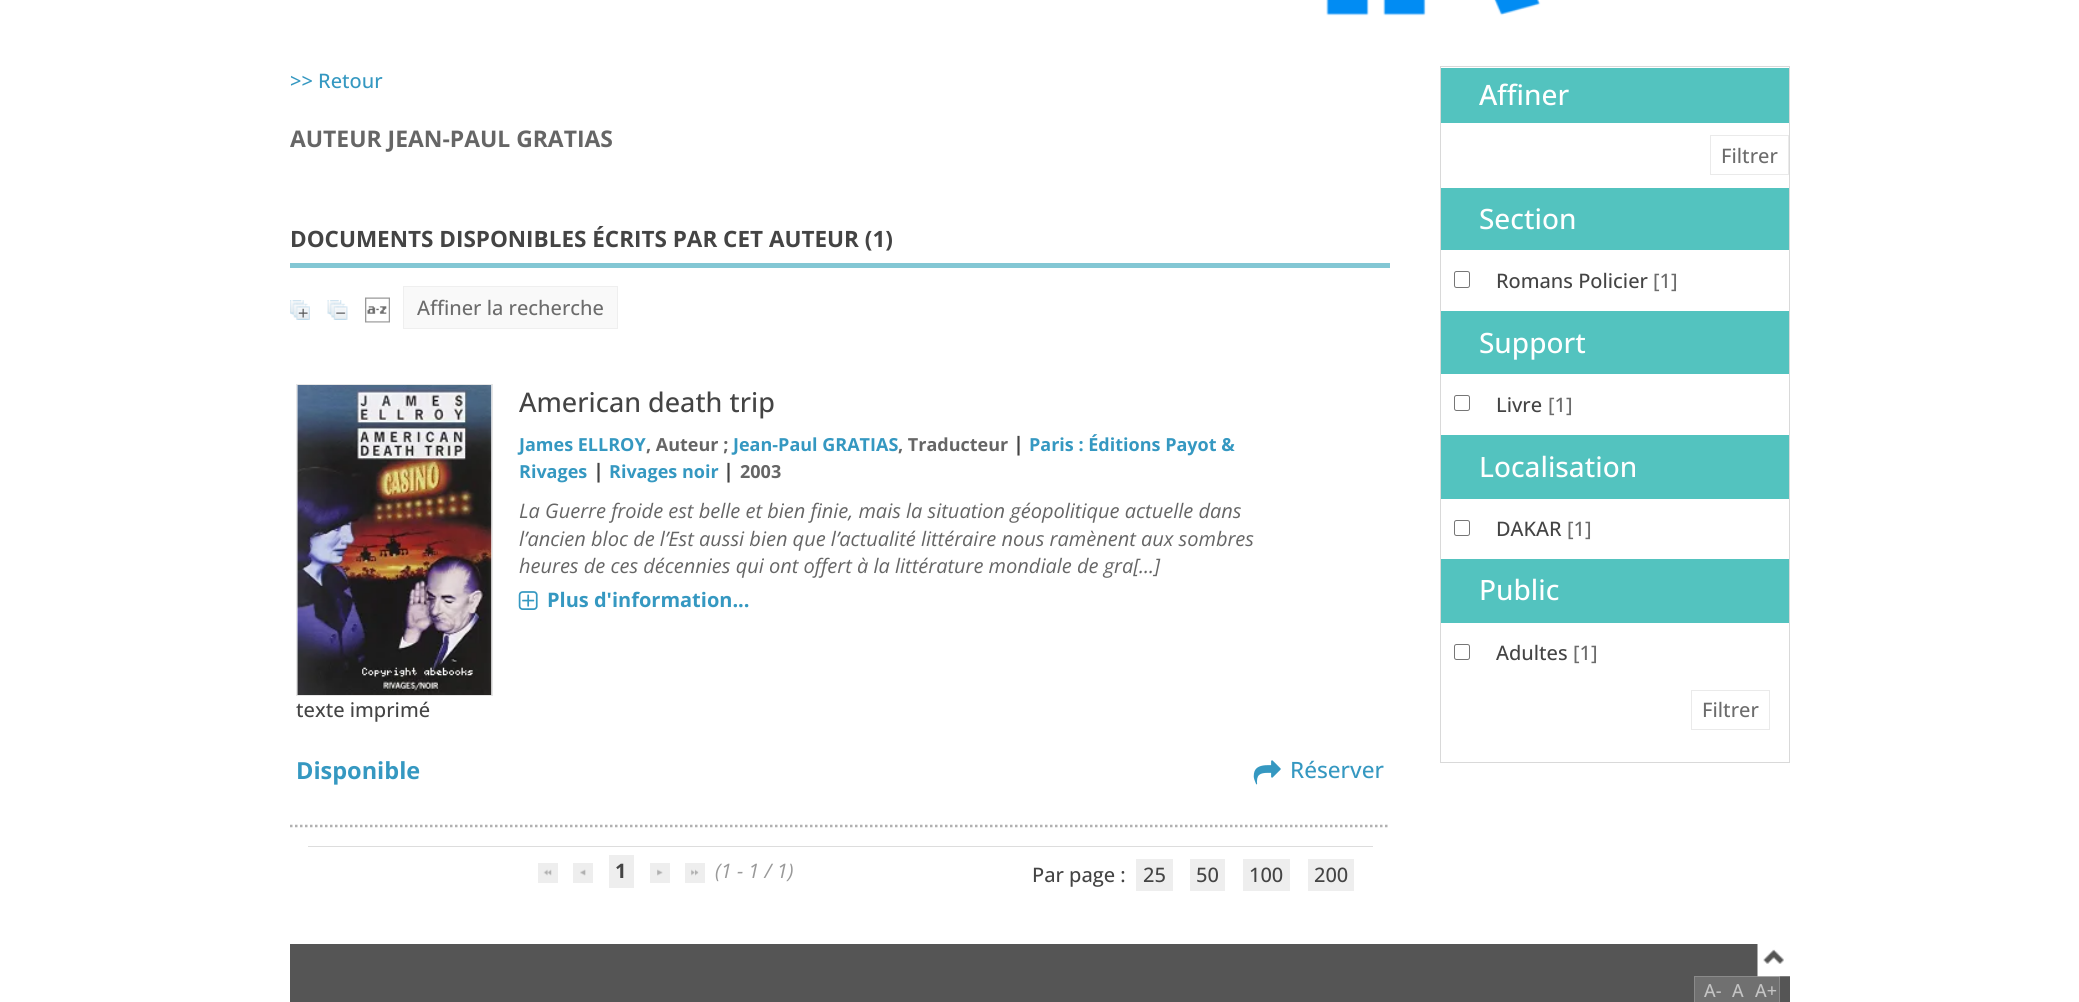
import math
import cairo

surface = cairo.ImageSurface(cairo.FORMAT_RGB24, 2079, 1002)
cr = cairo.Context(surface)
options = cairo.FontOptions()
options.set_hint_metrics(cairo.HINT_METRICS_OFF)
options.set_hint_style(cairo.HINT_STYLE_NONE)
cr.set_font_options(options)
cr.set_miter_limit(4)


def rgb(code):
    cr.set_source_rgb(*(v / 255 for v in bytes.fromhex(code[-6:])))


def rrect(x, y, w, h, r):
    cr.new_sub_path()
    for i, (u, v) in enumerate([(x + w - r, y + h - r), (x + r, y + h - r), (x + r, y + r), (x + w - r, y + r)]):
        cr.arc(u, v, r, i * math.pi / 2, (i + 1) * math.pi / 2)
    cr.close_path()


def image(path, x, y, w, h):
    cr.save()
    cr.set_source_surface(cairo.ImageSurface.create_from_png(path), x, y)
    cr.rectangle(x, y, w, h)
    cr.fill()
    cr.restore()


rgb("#ffffff")
cr.paint()
image("img/1.png", 1326, 0, 215, 16)
rgb("#83c7d4")
cr.rectangle(290, 263, 1100, 5)
cr.fill()
image("img/2.png", 290, 300, 20, 20)
image("img/3.png", 327, 300, 21, 20)
image("img/4.png", 365, 297, 25, 26)
rgb("#f9f9f9")
cr.rectangle(403.5, 286.5, 214, 42)
cr.fill_preserve()
rgb("#efefef")
cr.set_line_width(1)
cr.stroke()
cr.new_path()
cr.move_to(290, 826)
cr.line_to(1390, 826)
rgb("#b1b1b1")
cr.set_line_width(2.5)
cr.set_dash([2.5, 2.5])
cr.stroke()
image("img/5.png", 518, 591, 20, 19)
cr.rectangle(296.5, 384.5, 196, 311)
rgb("#e6e6e6")
cr.set_line_width(1)
cr.set_dash([])
cr.stroke()
image("img/6.png", 297, 385, 195, 310)
image("img/7.png", 1253, 760, 28, 25)
rgb("#dddddd")
cr.rectangle(308, 846, 1065, 1)
cr.fill()
rgb("#eeeeee")
cr.rectangle(538, 863, 20, 20)
cr.fill()
image("img/8.png", 543, 869, 9, 7)
cr.rectangle(573, 863, 20, 20)
cr.fill()
image("img/9.png", 580, 869, 6, 7)
cr.rectangle(609, 855, 25, 33)
cr.fill()
cr.rectangle(650, 863, 20, 20)
cr.fill()
image("img/10.png", 657, 869, 6, 7)
cr.rectangle(685, 863, 20, 20)
cr.fill()
image("img/11.png", 691, 869, 8, 7)
for x, y, w, h, color in [
    (1136, 859, 37, 32, "#eeeeee"),
    (1190, 859, 35, 32, "#eeeeee"),
    (1243, 859, 47, 32, "#eeeeee"),
    (1308, 859, 46, 32, "#eeeeee"),
]:
    rgb(color)
    cr.rectangle(x, y, w, h)
    cr.fill()
cr.rectangle(1440.5, 66.5, 349, 696)
rgb("#d9d9d9")
cr.stroke()
rgb("#53c3bf")
cr.rectangle(1441, 68, 348, 55)
cr.fill()
cr.rectangle(1710.5, 135.5, 78, 39)
rgb("#eaeaea")
cr.stroke()
rgb("#53c3bf")
cr.rectangle(1441, 188, 348, 62)
cr.fill()
rrect(1454.5, 271.5, 15, 16, 2)
rgb("#767676")
cr.stroke()
rgb("#53c3bf")
cr.rectangle(1441, 311, 348, 63)
cr.fill()
rrect(1454.5, 395.5, 15, 15, 2)
rgb("#767676")
cr.stroke()
rgb("#53c3bf")
cr.rectangle(1441, 435, 348, 64)
cr.fill()
rrect(1454.5, 520.5, 15, 15, 2)
rgb("#767676")
cr.stroke()
rgb("#53c3bf")
cr.rectangle(1441, 559, 348, 64)
cr.fill()
rrect(1454.5, 644.5, 15, 15, 2)
rgb("#767676")
cr.stroke()
cr.rectangle(1691.5, 690.5, 78, 39)
rgb("#eaeaea")
cr.stroke()
rgb("#555555")
cr.rectangle(290, 944, 1500, 58)
cr.fill()
rgb("#707070")
cr.rectangle(1694.5, 976.5, 85, 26)
cr.fill_preserve()
rgb("#8a8a8a")
cr.stroke()
image("img/12.png", 1757, 944, 33, 33)
cr.select_font_face("Open Sans Medium")
cr.set_font_size(20)
rgb("#3598c1")
cr.move_to(290, 88)
cr.show_text(">> Retour")
cr.select_font_face("Open Sans", cairo.FONT_SLANT_NORMAL, cairo.FONT_WEIGHT_BOLD)
cr.set_font_size(22.9)
rgb("#666666")
cr.move_to(290, 147)
cr.show_text("AUTEUR JEAN-PAUL GRATIAS")
cr.set_font_size(22.5)
rgb("#444444")
cr.move_to(290, 247)
cr.show_text("DOCUMENTS DISPONIBLES ÉCRITS PAR CET AUTEUR (1)")
cr.select_font_face("Open Sans Medium")
cr.set_font_size(20)
rgb("#6c6c6c")
cr.move_to(417, 315)
cr.show_text("Affiner la recherche")
cr.set_font_size(27)
rgb("#444444")
cr.move_to(519, 412)
cr.show_text("American death trip")
cr.select_font_face("Open Sans", cairo.FONT_SLANT_NORMAL, cairo.FONT_WEIGHT_BOLD)
cr.set_font_size(18)
rgb("#3598c1")
cr.move_to(519, 451)
cr.show_text("James ELLROY")
rgb("#666666")
cr.move_to(646, 451)
cr.show_text(", Auteur ;")
rgb("#3598c1")
cr.move_to(733, 451)
cr.show_text("Jean-Paul GRATIAS")
rgb("#666666")
cr.move_to(898, 451)
cr.show_text(", Traducteur")
cr.set_font_size(20)
rgb("#444444")
cr.move_to(1013, 451)
cr.show_text("|")
cr.set_font_size(18)
rgb("#3598c1")
cr.move_to(1029, 451)
cr.show_text("Paris : Éditions Payot &")
cr.move_to(519, 478)
cr.show_text("Rivages")
cr.set_font_size(20)
rgb("#444444")
cr.move_to(593, 478)
cr.show_text("|")
cr.set_font_size(18)
rgb("#3598c1")
cr.move_to(609, 478)
cr.show_text("Rivages noir")
cr.set_font_size(20)
rgb("#444444")
cr.move_to(723, 478)
cr.show_text("|")
cr.set_font_size(18)
rgb("#666666")
cr.move_to(740, 478)
cr.show_text("2003")
cr.select_font_face("Open Sans", cairo.FONT_SLANT_ITALIC)
cr.set_font_size(20)
for x, y, s in [
    (519, 518, "La Guerre froide est belle et bien finie, mais la situation géopolitique actuelle dans"),
    (519, 546, "l’ancien bloc de l’Est aussi bien que l’actualité littéraire nous ramènent aux sombres"),
    (519, 573, "heures de ces décennies qui ont offert à la littérature mondiale de gra[...]"),
]:
    cr.move_to(x, y)
    cr.show_text(s)
cr.select_font_face("Open Sans", cairo.FONT_SLANT_NORMAL, cairo.FONT_WEIGHT_BOLD)
rgb("#3598c1")
cr.move_to(547, 607)
cr.show_text("Plus d'information...")
cr.select_font_face("Open Sans Medium")
rgb("#444444")
cr.move_to(296, 717)
cr.show_text("texte imprimé")
cr.select_font_face("Open Sans", cairo.FONT_SLANT_NORMAL, cairo.FONT_WEIGHT_BOLD)
cr.set_font_size(23.5)
rgb("#3598c1")
cr.move_to(296, 779)
cr.show_text("Disponible")
cr.select_font_face("Open Sans Medium")
cr.set_font_size(22.5)
cr.move_to(1290, 778)
cr.show_text("Réserver")
cr.select_font_face("Open Sans", cairo.FONT_SLANT_NORMAL, cairo.FONT_WEIGHT_BOLD)
cr.set_font_size(20)
rgb("#444444")
cr.move_to(615, 878)
cr.show_text("1")
cr.select_font_face("Open Sans", cairo.FONT_SLANT_ITALIC)
rgb("#999999")
cr.move_to(715, 878)
cr.show_text("(1 - 1 / 1)")
cr.select_font_face("Open Sans Medium")
rgb("#444444")
for x, y, s in [
    (1032, 882, "Par page :"),
    (1143, 882, "25"),
    (1196, 882, "50"),
    (1249, 882, "100"),
    (1314, 882, "200"),
]:
    cr.move_to(x, y)
    cr.show_text(s)
cr.select_font_face("Noto Sans Medium")
cr.set_font_size(28)
rgb("#ffffff")
cr.move_to(1479, 105)
cr.show_text("A")
cr.select_font_face("Open Sans Medium")
cr.move_to(1497, 105)
cr.show_text("ffiner")
cr.set_font_size(20)
rgb("#6c6c6c")
cr.move_to(1721, 163)
cr.show_text("Filtrer")
cr.set_font_size(28)
rgb("#ffffff")
cr.move_to(1479, 229)
cr.show_text("Section")
cr.set_font_size(20)
rgb("#444444")
cr.move_to(1496, 288)
cr.show_text("Romans Policier")
rgb("#6c6c6c")
cr.move_to(1653, 288)
cr.show_text("[1]")
cr.set_font_size(28)
rgb("#ffffff")
cr.move_to(1479, 353)
cr.show_text("Support")
cr.set_font_size(20)
rgb("#444444")
cr.move_to(1496, 412)
cr.show_text("Livre")
rgb("#6c6c6c")
cr.move_to(1548, 412)
cr.show_text("[1]")
cr.set_font_size(28)
rgb("#ffffff")
cr.move_to(1479, 477)
cr.show_text("Localisation")
cr.set_font_size(20)
rgb("#444444")
cr.move_to(1496, 536)
cr.show_text("DAKAR")
rgb("#6c6c6c")
cr.move_to(1567, 536)
cr.show_text("[1]")
cr.set_font_size(28)
rgb("#ffffff")
cr.move_to(1479, 600)
cr.show_text("Public")
cr.set_font_size(20)
rgb("#444444")
cr.move_to(1496, 660)
cr.show_text("Adultes")
rgb("#6c6c6c")
cr.move_to(1573, 660)
cr.show_text("[1]")
cr.move_to(1702, 717)
cr.show_text("Filtrer")
cr.set_font_size(18)
rgb("#c4c4c4")
for x, y, s in [
    (1704, 997, "A-"),
    (1732, 997, "A"),
    (1755, 997, "A+"),
]:
    cr.move_to(x, y)
    cr.show_text(s)
surface.write_to_png("page.png")
